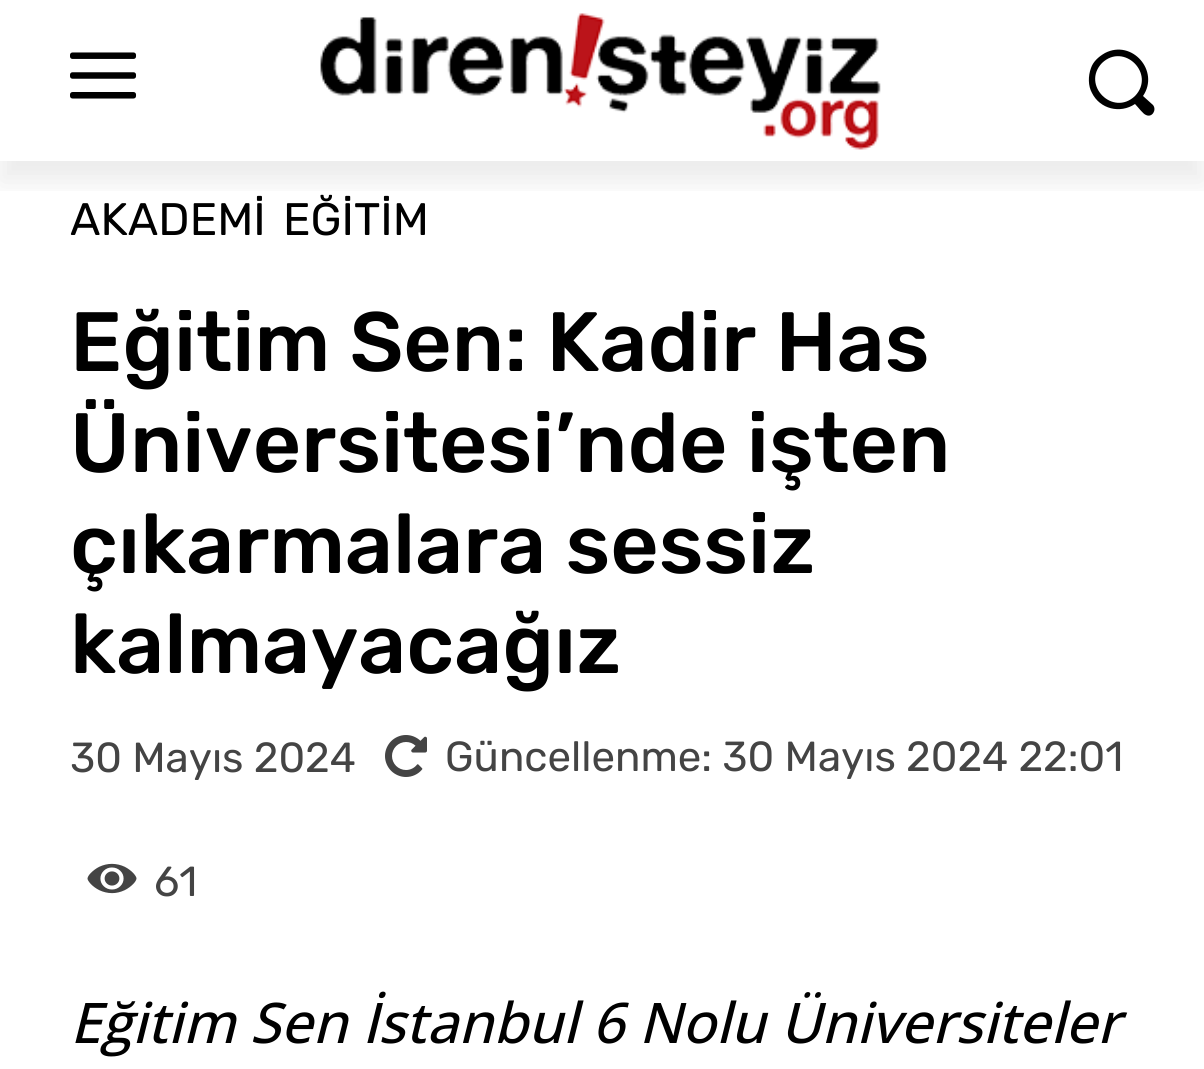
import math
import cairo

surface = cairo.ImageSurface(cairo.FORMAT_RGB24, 1204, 1069)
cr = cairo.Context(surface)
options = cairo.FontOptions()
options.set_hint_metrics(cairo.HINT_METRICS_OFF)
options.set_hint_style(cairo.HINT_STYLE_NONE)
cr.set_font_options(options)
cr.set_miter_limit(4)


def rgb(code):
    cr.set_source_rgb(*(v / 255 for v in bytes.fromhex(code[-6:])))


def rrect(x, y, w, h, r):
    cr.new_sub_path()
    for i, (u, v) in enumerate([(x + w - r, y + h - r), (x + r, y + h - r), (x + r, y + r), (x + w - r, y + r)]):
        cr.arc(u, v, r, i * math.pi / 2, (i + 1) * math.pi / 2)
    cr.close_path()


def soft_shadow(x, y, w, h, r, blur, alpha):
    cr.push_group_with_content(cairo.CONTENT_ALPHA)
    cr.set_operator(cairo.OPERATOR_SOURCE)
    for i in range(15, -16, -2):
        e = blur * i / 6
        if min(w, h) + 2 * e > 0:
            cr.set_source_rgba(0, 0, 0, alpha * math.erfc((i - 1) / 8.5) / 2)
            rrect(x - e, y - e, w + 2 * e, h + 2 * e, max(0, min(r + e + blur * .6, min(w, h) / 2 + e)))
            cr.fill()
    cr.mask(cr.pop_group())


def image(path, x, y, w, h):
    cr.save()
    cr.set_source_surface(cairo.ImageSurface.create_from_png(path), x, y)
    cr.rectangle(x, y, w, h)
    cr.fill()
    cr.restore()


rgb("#ffffff")
cr.paint()
image("img/1.png", 70, 52, 67, 47)
image("img/2.png", 320, 13, 561, 137)
rgb("#000000")
cr.new_path()
cr.move_to(1153, 105)
cr.line_to(1143, 96)
cr.curve_to(1160, 71, 1132, 39, 1105, 53)
cr.curve_to(1098, 57, 1093, 62, 1091, 68)
cr.curve_to(1088, 76, 1088, 86, 1092, 93)
cr.curve_to(1100, 109, 1120, 114, 1135, 104)
cr.curve_to(1138, 107, 1143, 114, 1146, 115)
cr.curve_to(1152, 118, 1157, 110, 1153, 105)
cr.close_path()
cr.move_to(1135, 96)
cr.curve_to(1113, 117, 1081, 85, 1102, 63)
cr.curve_to(1124, 42, 1156, 74, 1135, 96)
cr.close_path()
cr.fill()
cr.save()
cr.rectangle(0, 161, 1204, 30)
cr.clip()
rgb("#000000")
soft_shadow(0, 21, 1204, 161, 0, 14, 0.08)
cr.restore()
image("img/3.png", 385, 735, 42, 42)
image("img/4.png", 87, 863, 50, 31)
cr.select_font_face("Rubik")
cr.set_font_size(45.5)
cr.move_to(70, 235)
cr.show_text("AKADEMİ")
cr.move_to(283, 235)
cr.show_text("EĞİTİM")
cr.select_font_face("Rubik Medium")
cr.set_font_size(84)
for x, y, s in [
    (70, 371, "Eğitim Sen: Kadir Has"),
    (70, 472, "Üniversitesi’nde işten"),
    (70, 573, "çıkarmalara sessiz"),
    (70, 673, "kalmayacağız"),
]:
    cr.move_to(x, y)
    cr.show_text(s)
cr.select_font_face("Rubik")
cr.set_font_size(42)
rgb("#444444")
for x, y, s in [
    (70, 772, "30 Mayıs 2024"),
    (445, 771, "Güncellenme: 30 Mayıs 2024 22:01"),
    (154, 896, "61"),
]:
    cr.move_to(x, y)
    cr.show_text(s)
cr.select_font_face("Open Sans Medium", cairo.FONT_SLANT_ITALIC)
cr.set_font_size(56)
rgb("#000000")
cr.move_to(70, 1043)
cr.show_text("Eğitim Sen İstanbul 6 Nolu Üniversiteler")
surface.write_to_png("page.png")
